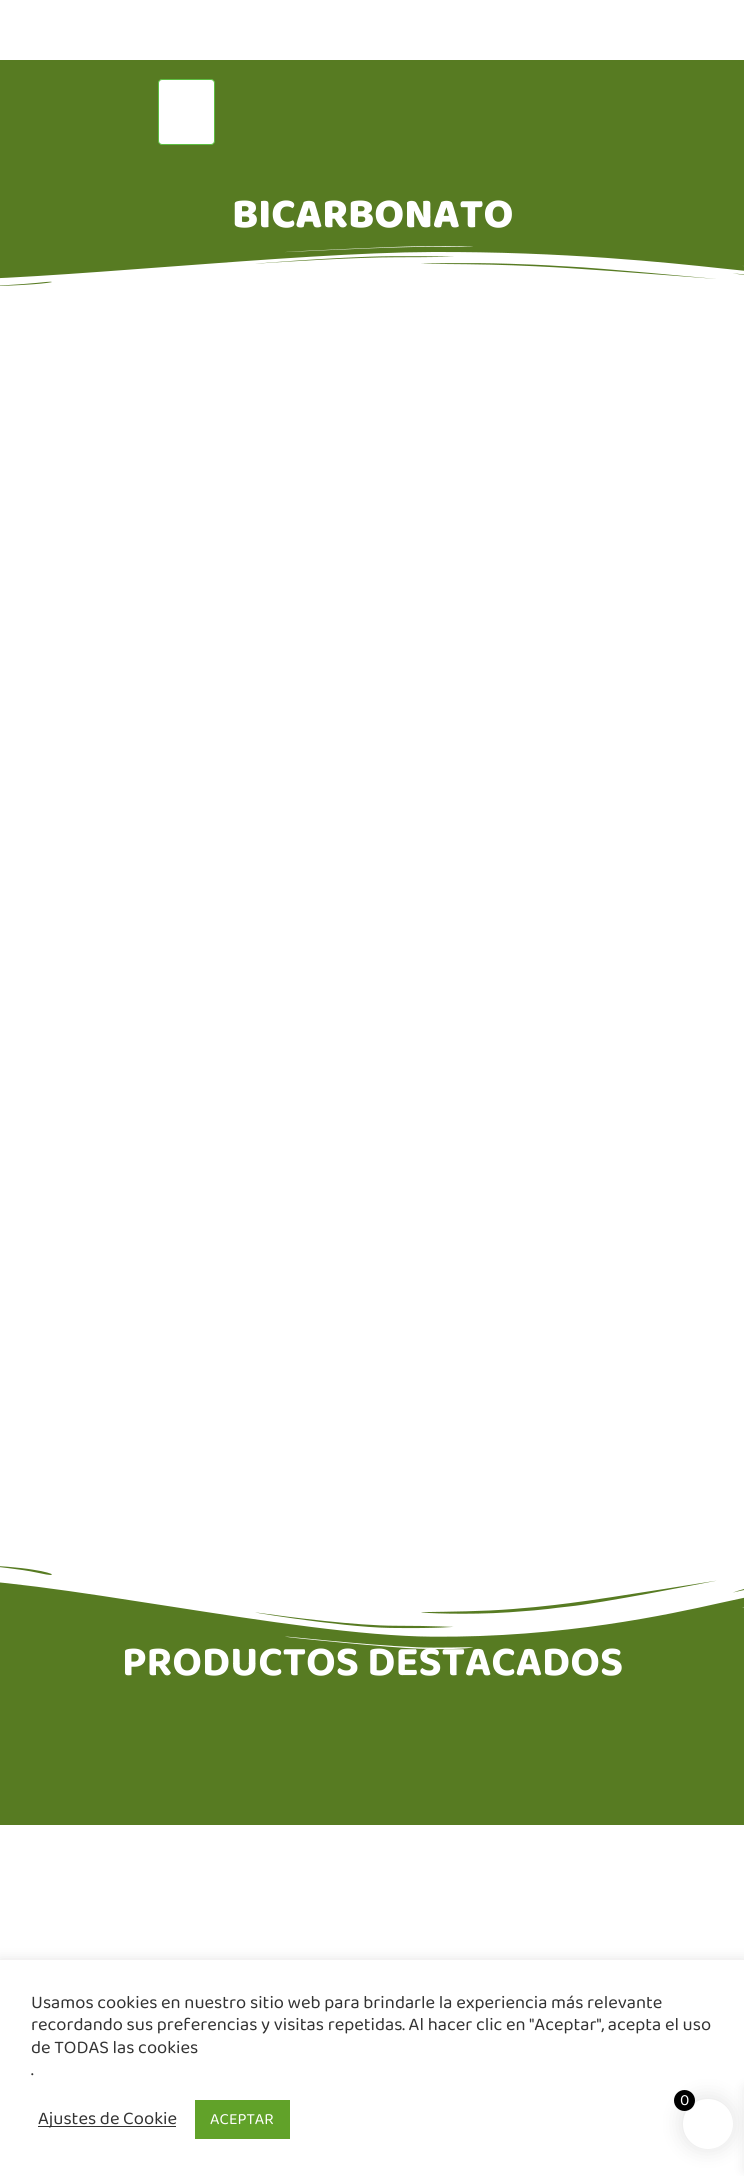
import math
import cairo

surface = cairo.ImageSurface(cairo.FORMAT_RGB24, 744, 2176)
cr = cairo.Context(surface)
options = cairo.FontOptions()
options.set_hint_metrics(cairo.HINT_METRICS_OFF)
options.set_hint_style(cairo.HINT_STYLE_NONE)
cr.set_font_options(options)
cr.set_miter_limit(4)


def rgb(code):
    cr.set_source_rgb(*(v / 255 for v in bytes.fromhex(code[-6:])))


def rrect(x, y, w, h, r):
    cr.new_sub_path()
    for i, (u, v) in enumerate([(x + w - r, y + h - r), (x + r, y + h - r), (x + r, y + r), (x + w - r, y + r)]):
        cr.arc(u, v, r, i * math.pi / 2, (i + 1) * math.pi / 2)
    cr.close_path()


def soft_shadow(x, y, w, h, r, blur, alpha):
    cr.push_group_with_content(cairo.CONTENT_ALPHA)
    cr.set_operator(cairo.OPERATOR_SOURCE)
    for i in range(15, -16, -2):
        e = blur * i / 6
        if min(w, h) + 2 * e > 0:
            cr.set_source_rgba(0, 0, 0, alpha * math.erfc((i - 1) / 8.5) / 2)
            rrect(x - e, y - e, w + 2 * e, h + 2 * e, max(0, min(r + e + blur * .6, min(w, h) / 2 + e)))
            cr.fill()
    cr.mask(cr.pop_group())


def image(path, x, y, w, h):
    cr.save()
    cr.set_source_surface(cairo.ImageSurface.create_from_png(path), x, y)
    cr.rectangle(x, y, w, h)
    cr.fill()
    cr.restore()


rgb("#ffffff")
cr.paint()
rgb("#577b22")
cr.rectangle(0, 60, 744, 226)
cr.fill()
rgb("#ffffff")
rrect(158.5, 79.5, 56, 65, 3.5)
cr.fill_preserve()
rgb("#5dbf42")
cr.set_line_width(1)
cr.stroke()
image("img/1.png", 0, 246, 744, 47)
rgb("#577b22")
cr.rectangle(0, 1566, 744, 259)
cr.fill()
image("img/2.png", 0, 1551, 744, 99)
rgb("#acabab")
soft_shadow(0, 1959, 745, 216, 0, 6, 0.3)
for x, y, w, h, color in [
    (0, 1960, 744, 216, "#ffffff"),
    (38, 2126, 138, 1, "#333333"),
    (195, 2100, 95, 39, "#61a229"),
]:
    rgb(color)
    cr.rectangle(x, y, w, h)
    cr.fill()
rgb("#000000")
soft_shadow(680, 2096, 55, 55, 27.5, 9.5, 0.1)
soft_shadow(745, 2088, 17, 82, 0, 6, 0.1)
rgb("#ffffff")
cr.arc(708, 2124, 25, 0, 2 * math.pi)
cr.fill()
rgb("#000000")
cr.arc(684.5, 2100.5, 10.5, 0, 2 * math.pi)
cr.fill()
cr.select_font_face("Baloo 2 ExtraBold")
cr.set_font_size(42.5)
rgb("#ffffff")
cr.move_to(232, 227)
cr.show_text("BICARBONATO")
cr.select_font_face("Baloo 2", cairo.FONT_SLANT_NORMAL, cairo.FONT_WEIGHT_BOLD)
cr.move_to(122, 1675)
cr.show_text("PRODUCTOS DESTACADOS")
cr.select_font_face("Baloo 2")
cr.set_font_size(18.35)
rgb("#333333")
for x, y, s in [
    (31, 2008, "Usamos cookies en nuestro sitio web para brindarle la experiencia más relevante"),
    (31, 2030, "recordando sus preferencias y visitas repetidas. Al hacer clic en \"Aceptar\", acepta el uso"),
    (31, 2053, "de TODAS las cookies"),
    (31, 2075, "."),
    (38, 2124, "Ajustes de Cookie"),
]:
    cr.move_to(x, y)
    cr.show_text(s)
cr.set_font_size(16)
rgb("#ffffff")
cr.move_to(210, 2124)
cr.show_text("ACEPTAR")
cr.move_to(680, 2105)
cr.show_text("0")
surface.write_to_png("page.png")
